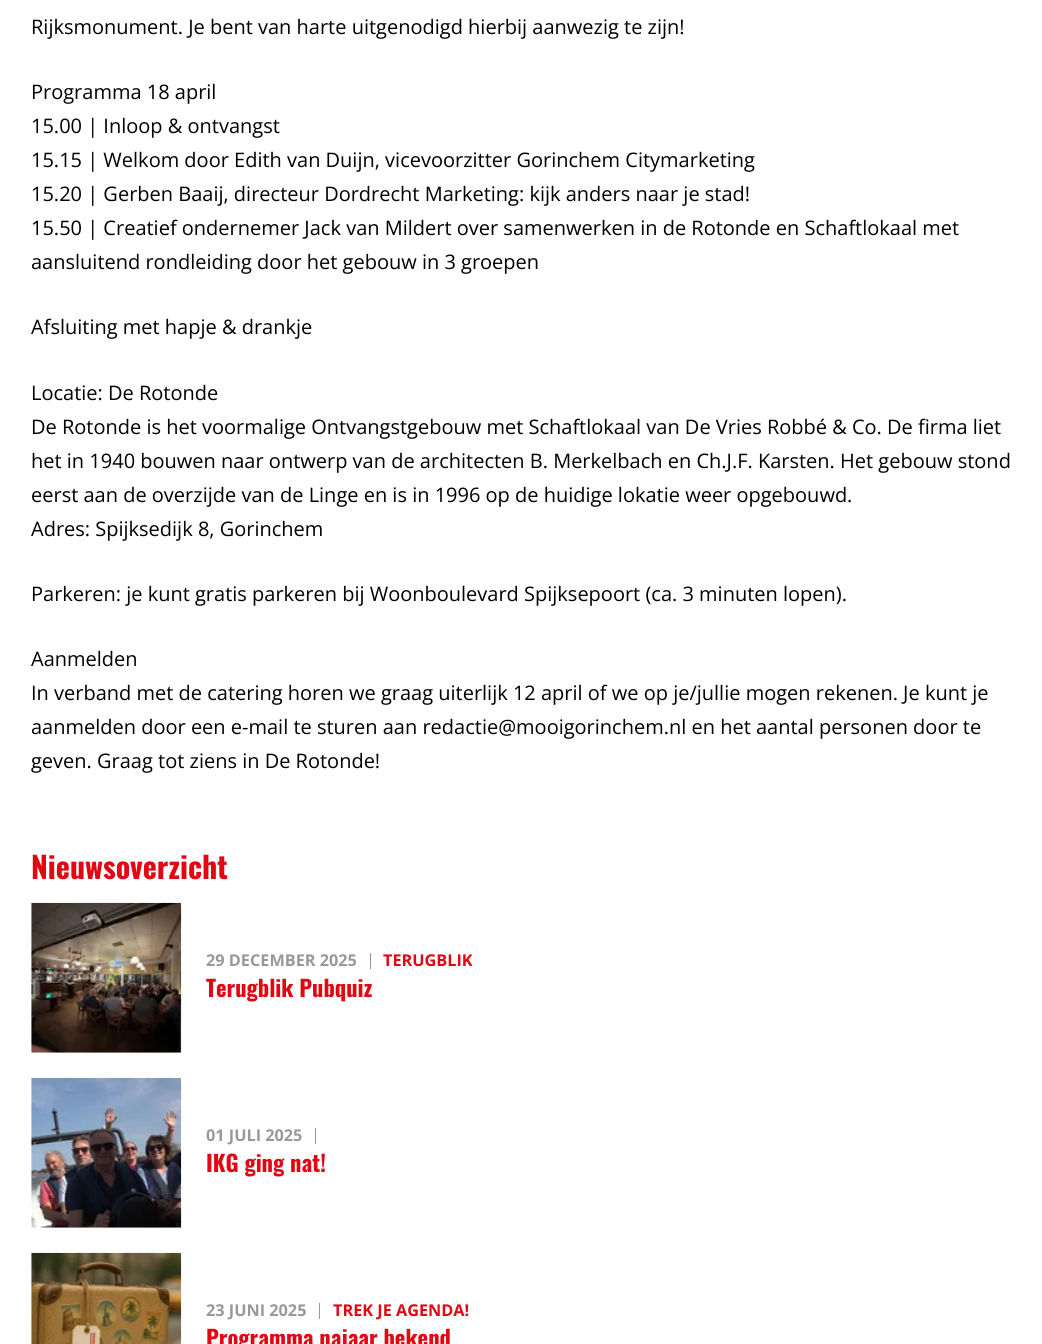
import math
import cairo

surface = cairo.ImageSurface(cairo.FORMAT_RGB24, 1042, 1344)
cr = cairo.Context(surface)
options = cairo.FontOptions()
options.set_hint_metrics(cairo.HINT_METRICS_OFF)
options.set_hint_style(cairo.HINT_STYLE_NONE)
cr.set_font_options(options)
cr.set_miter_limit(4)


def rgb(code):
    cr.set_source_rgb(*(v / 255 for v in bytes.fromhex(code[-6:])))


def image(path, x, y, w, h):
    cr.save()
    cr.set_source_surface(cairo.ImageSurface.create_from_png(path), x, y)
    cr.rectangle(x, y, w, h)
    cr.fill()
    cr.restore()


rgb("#ffffff")
cr.paint()
image("img/1.png", 31, 902, 151, 151)
rgb("#999999")
cr.rectangle(370, 953, 1, 16)
cr.fill()
image("img/2.png", 31, 1077, 151, 151)
cr.rectangle(315, 1128, 1, 16)
cr.fill()
image("img/3.png", 31, 1252, 151, 92)
cr.rectangle(319, 1303, 1, 16)
cr.fill()
cr.select_font_face("Open Sans")
cr.set_font_size(20)
rgb("#000000")
for x, y, s in [
    (31, 34, "Rijksmonument. Je bent van harte uitgenodigd hierbij aanwezig te zijn!"),
    (31, 99, "Programma 18 april"),
    (31, 133, "15.00 | Inloop & ontvangst"),
    (31, 167, "15.15 | Welkom door Edith van Duijn, vicevoorzitter Gorinchem Citymarketing"),
    (31, 201, "15.20 | Gerben Baaij, directeur Dordrecht Marketing: kijk anders naar je stad!"),
    (31, 235, "15.50 | Creatief ondernemer Jack van Mildert over samenwerken in de Rotonde en Schaftlokaal met"),
    (31, 269, "aansluitend rondleiding door het gebouw in 3 groepen"),
    (31, 334, "Afsluiting met hapje & drankje"),
    (31, 400, "Locatie: De Rotonde"),
    (31, 434, "De Rotonde is het voormalige Ontvangstgebouw met Schaftlokaal van De Vries Robbé & Co. De firma liet"),
    (31, 468, "het in 1940 bouwen naar ontwerp van de architecten B. Merkelbach en Ch.J.F. Karsten. Het gebouw stond"),
    (31, 502, "eerst aan de overzijde van de Linge en is in 1996 op de huidige lokatie weer opgebouwd."),
    (31, 536, "Adres: Spijksedijk 8, Gorinchem"),
    (31, 601, "Parkeren: je kunt gratis parkeren bij Woonboulevard Spijksepoort (ca. 3 minuten lopen)."),
    (31, 666, "Aanmelden"),
    (31, 700, "In verband met de catering horen we graag uiterlijk 12 april of we op je/jullie mogen rekenen. Je kunt je"),
    (31, 734, "aanmelden door een e-mail te sturen aan redactie@mooigorinchem.nl en het aantal personen door te"),
    (31, 768, "geven. Graag tot ziens in De Rotonde!"),
]:
    cr.move_to(x, y)
    cr.show_text(s)
cr.select_font_face("Oswald", cairo.FONT_SLANT_NORMAL, cairo.FONT_WEIGHT_BOLD)
cr.set_font_size(30)
rgb("#e30613")
cr.move_to(31, 879)
cr.show_text("Nieuwsoverzicht")
cr.select_font_face("Open Sans", cairo.FONT_SLANT_NORMAL, cairo.FONT_WEIGHT_BOLD)
cr.set_font_size(16.25)
rgb("#999999")
cr.move_to(206, 966)
cr.show_text("29 DECEMBER 2025")
rgb("#e30613")
cr.move_to(383, 966)
cr.show_text("TERUGBLIK")
cr.select_font_face("Oswald", cairo.FONT_SLANT_NORMAL, cairo.FONT_WEIGHT_BOLD)
cr.set_font_size(22.5)
cr.move_to(206, 997)
cr.show_text("Terugblik Pubquiz")
cr.select_font_face("Open Sans", cairo.FONT_SLANT_NORMAL, cairo.FONT_WEIGHT_BOLD)
cr.set_font_size(16.25)
rgb("#999999")
cr.move_to(206, 1141)
cr.show_text("01 JULI 2025")
cr.select_font_face("Oswald", cairo.FONT_SLANT_NORMAL, cairo.FONT_WEIGHT_BOLD)
cr.set_font_size(22.5)
rgb("#e30613")
cr.move_to(206, 1172)
cr.show_text("IKG ging nat!")
cr.select_font_face("Open Sans", cairo.FONT_SLANT_NORMAL, cairo.FONT_WEIGHT_BOLD)
cr.set_font_size(16.25)
rgb("#999999")
cr.move_to(206, 1316)
cr.show_text("23 JUNI 2025")
rgb("#e30613")
cr.move_to(333, 1316)
cr.show_text("TREK JE AGENDA!")
cr.select_font_face("Oswald", cairo.FONT_SLANT_NORMAL, cairo.FONT_WEIGHT_BOLD)
cr.set_font_size(22.5)
cr.move_to(206, 1347)
cr.show_text("Programma najaar bekend")
surface.write_to_png("page.png")
